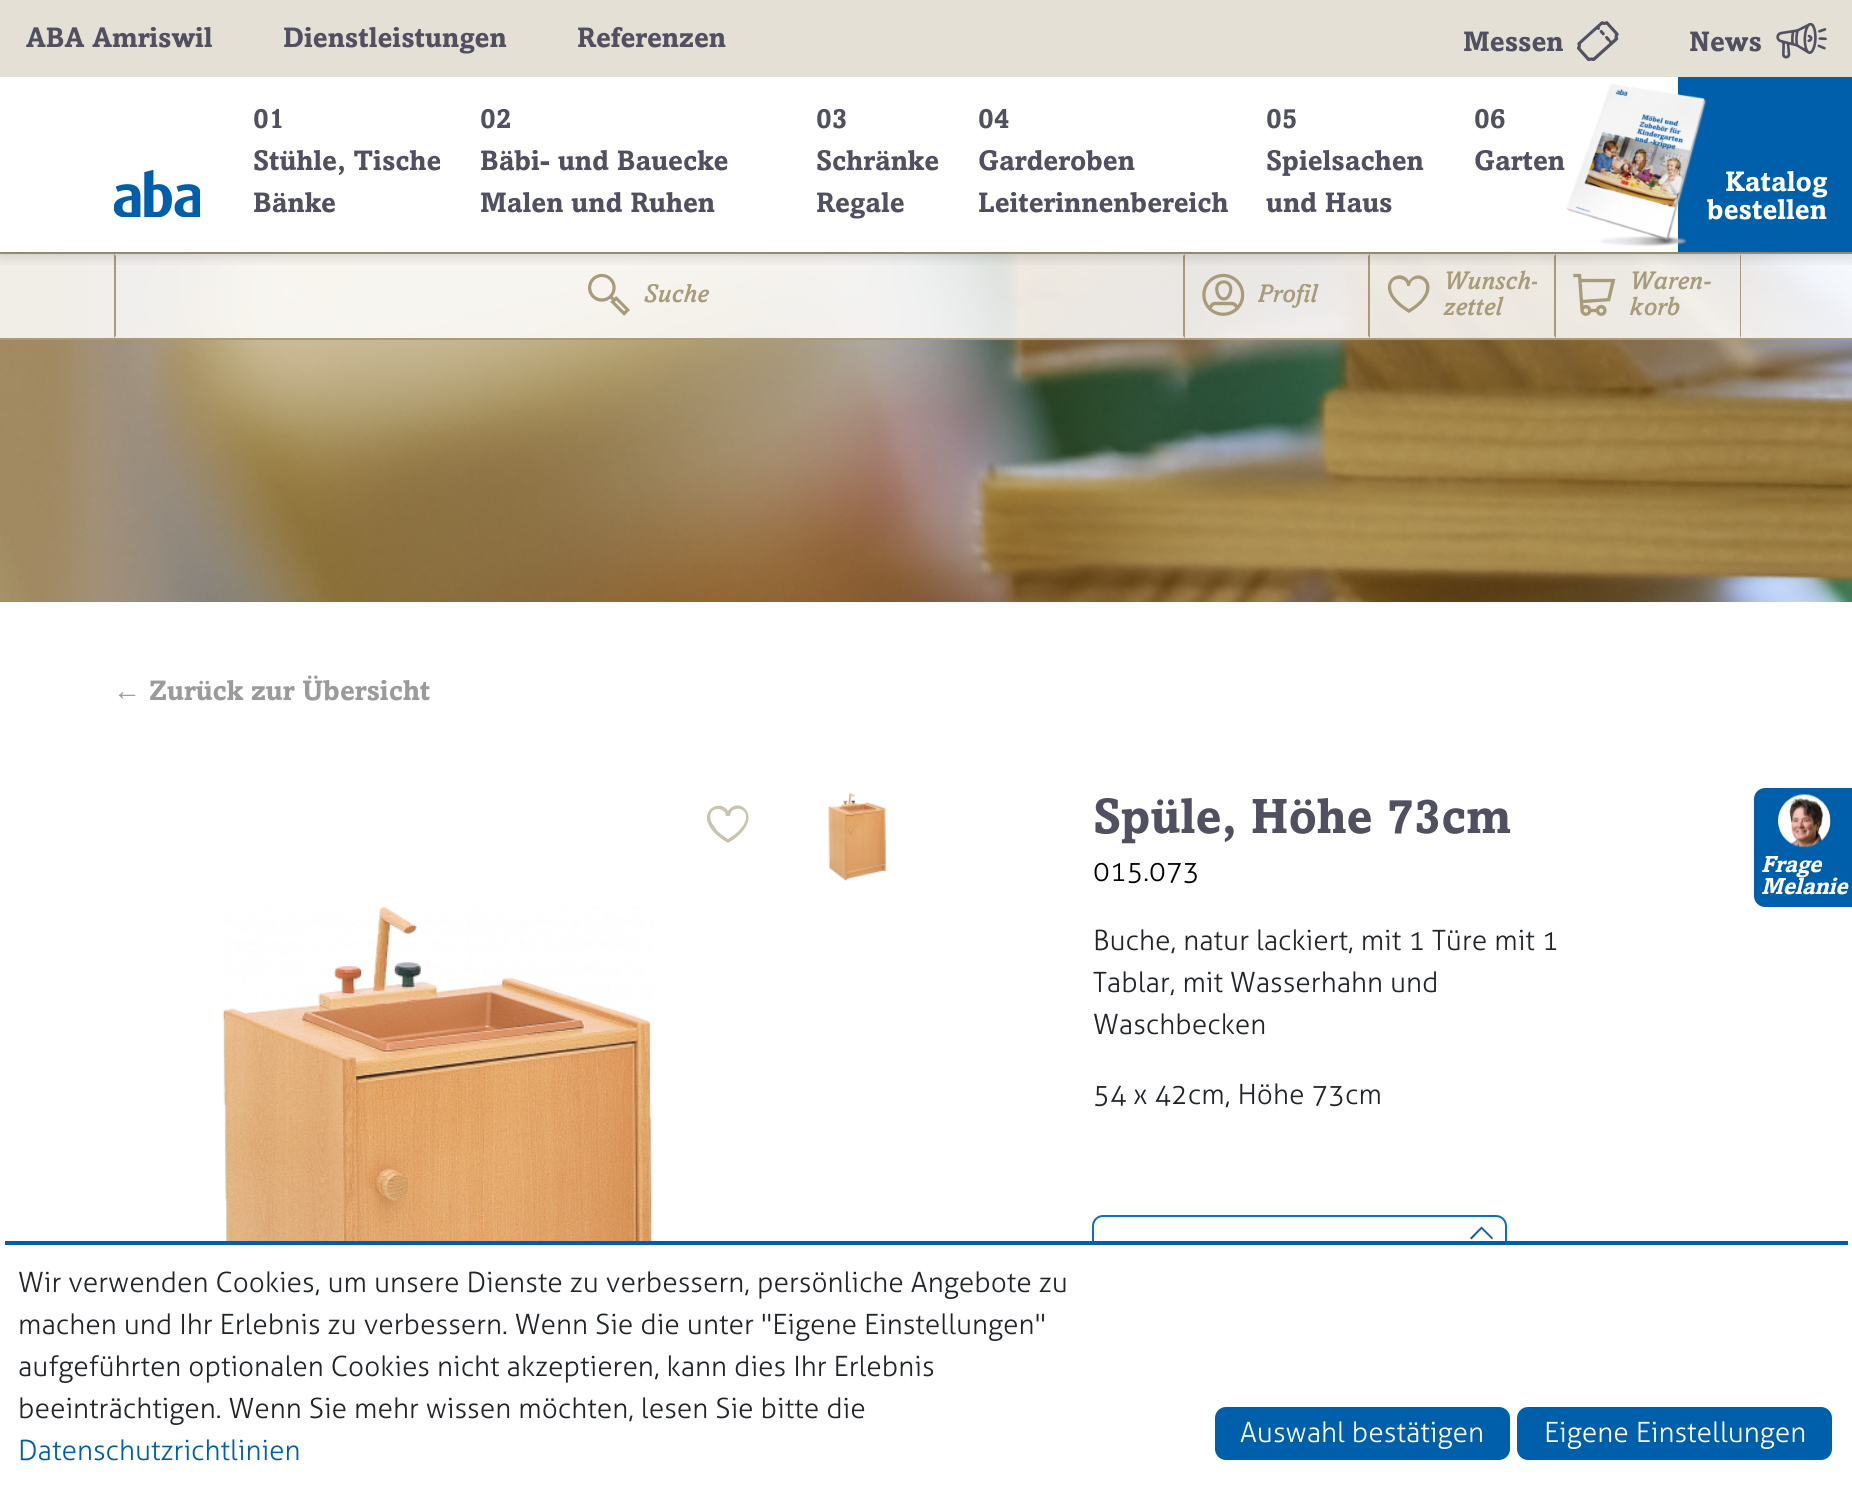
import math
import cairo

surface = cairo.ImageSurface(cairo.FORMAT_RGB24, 1852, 1485)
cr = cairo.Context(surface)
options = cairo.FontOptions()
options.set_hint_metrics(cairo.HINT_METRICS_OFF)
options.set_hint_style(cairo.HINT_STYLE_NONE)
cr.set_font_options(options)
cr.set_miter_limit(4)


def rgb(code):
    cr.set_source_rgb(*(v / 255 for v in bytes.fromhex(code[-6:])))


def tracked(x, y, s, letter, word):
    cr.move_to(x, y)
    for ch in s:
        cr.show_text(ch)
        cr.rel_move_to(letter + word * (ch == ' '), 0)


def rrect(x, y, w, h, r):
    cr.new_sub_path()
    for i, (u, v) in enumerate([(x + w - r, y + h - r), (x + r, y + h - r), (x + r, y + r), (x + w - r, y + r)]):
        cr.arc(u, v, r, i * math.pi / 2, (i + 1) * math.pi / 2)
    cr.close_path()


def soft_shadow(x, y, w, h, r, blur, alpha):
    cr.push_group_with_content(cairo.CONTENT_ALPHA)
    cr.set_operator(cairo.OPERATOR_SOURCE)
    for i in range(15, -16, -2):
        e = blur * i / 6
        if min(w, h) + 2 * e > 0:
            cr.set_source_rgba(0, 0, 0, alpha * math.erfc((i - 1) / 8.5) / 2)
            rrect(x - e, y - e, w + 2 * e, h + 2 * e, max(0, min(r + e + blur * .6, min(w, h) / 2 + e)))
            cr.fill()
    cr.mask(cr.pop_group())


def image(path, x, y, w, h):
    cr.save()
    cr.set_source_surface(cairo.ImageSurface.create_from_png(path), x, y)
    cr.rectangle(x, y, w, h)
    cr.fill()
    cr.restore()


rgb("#ffffff")
cr.paint()
image("img/8.png", 0, 254, 1852, 348)
cr.set_source_rgba(1, 1, 1, 0.85)
cr.rectangle(0, 254, 1852, 84)
cr.fill()
rgb("#a79b7a")
cr.rectangle(0, 252, 1852, 2)
cr.fill()
cr.new_path()
cr.move_to(1185, 254)
cr.line_to(1185, 338)
cr.line_to(1183, 336)
cr.line_to(1183, 256)
cr.close_path()
cr.fill()
cr.new_path()
cr.move_to(114, 338)
cr.line_to(114, 254)
cr.line_to(116, 256)
cr.line_to(116, 336)
cr.close_path()
cr.fill()
image("img/5.png", 588, 273, 42, 43)
cr.new_path()
cr.move_to(1370, 254)
cr.line_to(1370, 338)
cr.line_to(1368, 336)
cr.line_to(1368, 256)
cr.close_path()
cr.fill()
image("img/6.png", 1202, 273, 43, 43)
cr.new_path()
cr.move_to(1556, 254)
cr.line_to(1556, 338)
cr.line_to(1554, 336)
cr.line_to(1554, 256)
cr.close_path()
cr.fill()
cr.new_path()
cr.move_to(1409, 313)
cr.curve_to(1367, 288, 1399, 264, 1409, 281)
cr.curve_to(1420, 264, 1449, 289, 1409, 313)
cr.close_path()
cr.move_to(1399, 279)
cr.curve_to(1389, 279, 1390, 290, 1394, 296)
cr.curve_to(1398, 301, 1403, 306, 1409, 309)
cr.curve_to(1416, 305, 1426, 297, 1426, 288)
cr.curve_to(1427, 276, 1410, 276, 1410, 286)
cr.line_to(1407, 286)
cr.curve_to(1407, 281, 1403, 279, 1399, 279)
cr.close_path()
cr.fill()
cr.new_path()
cr.move_to(1741, 254)
cr.line_to(1741, 338)
cr.line_to(1740, 336)
cr.line_to(1740, 256)
cr.close_path()
cr.fill()
image("img/7.png", 1573, 273, 43, 43)
cr.save()
cr.rectangle(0, 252, 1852, 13)
cr.clip()
rgb("#000000")
soft_shadow(0, 77, 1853, 175, 0, 9, 0.25)
cr.restore()
rgb("#e4e0d6")
cr.rectangle(0, 0, 1852, 77)
cr.fill()
image("img/1.png", 1577, 21, 42, 40)
image("img/2.png", 1776, 23, 51, 36)
image("img/3.png", 114, 170, 86, 47)
rgb("#005fab")
cr.rectangle(1678, 77, 174, 175)
cr.fill()
image("img/4.png", 1566, 84, 141, 163)
rgb("#a79b7a")
cr.rectangle(0, 338, 1852, 2)
cr.fill()
image("img/9.png", 222, 906, 431, 335)
rgb("#cac3af")
cr.new_path()
cr.move_to(728, 843)
cr.curve_to(686, 818, 718, 795, 728, 811)
cr.curve_to(739, 794, 768, 819, 728, 843)
cr.close_path()
cr.move_to(718, 809)
cr.curve_to(708, 809, 709, 821, 714, 826)
cr.curve_to(717, 832, 723, 836, 728, 839)
cr.curve_to(735, 835, 745, 827, 746, 818)
cr.curve_to(747, 806, 730, 806, 730, 816)
cr.line_to(726, 816)
cr.curve_to(726, 812, 722, 809, 718, 809)
cr.close_path()
cr.fill()
image("img/10.png", 828, 792, 58, 89)
rrect(1093, 1216, 413, 69, 10)
rgb("#0b71c3")
cr.stroke()
rgb("#005fab")
cr.new_path()
cr.move_to(1481.5, 1229)
cr.line_to(1471.5, 1239.5)
cr.line_to(1470, 1238)
cr.line_to(1481.5, 1226.5)
cr.line_to(1493, 1238)
cr.line_to(1492, 1239.5)
cr.close_path()
cr.fill()
cr.new_path()
cr.move_to(1765, 788)
cr.line_to(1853, 788)
cr.line_to(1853, 907)
cr.line_to(1765, 907)
cr.curve_to(1759, 907, 1754, 902, 1754, 896)
cr.line_to(1754, 799)
cr.curve_to(1754, 793, 1759, 788, 1765, 788)
cr.close_path()
cr.fill()
image("img/11.png", 1778, 794, 53, 54)
rgb("#ffffff")
cr.new_path()
cr.move_to(11, 1241)
cr.line_to(1842, 1241)
cr.curve_to(1848, 1241, 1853, 1246, 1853, 1252)
cr.line_to(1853, 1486)
cr.line_to(0, 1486)
cr.line_to(0, 1252)
cr.curve_to(0, 1246, 5, 1241, 11, 1241)
cr.close_path()
cr.fill()
rgb("#005fab")
cr.rectangle(5, 1241, 1843, 4)
cr.fill()
rrect(1215, 1407, 295, 53, 11)
cr.fill()
rrect(1517, 1407, 315, 53, 11)
cr.fill()
cr.select_font_face("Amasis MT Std", cairo.FONT_SLANT_NORMAL, cairo.FONT_WEIGHT_BOLD)
cr.set_font_size(28)
rgb("#505060")
for x, y, s in [
    (26, 47, "ABA Amriswil"),
    (283, 47, "Dienstleistungen"),
    (577, 47, "Referenzen"),
    (1463, 51, "Messen"),
    (1689, 51, "News"),
    (253, 128, "01"),
    (253, 170, "Stühle, Tische"),
    (253, 212, "Bänke"),
    (480, 128, "02"),
    (480, 170, "Bäbi- und Bauecke"),
    (480, 212, "Malen und Ruhen"),
    (816, 128, "03"),
    (816, 170, "Schränke"),
    (816, 212, "Regale"),
    (978, 128, "04"),
    (978, 170, "Garderoben"),
    (978, 212, "Leiterinnenbereich"),
    (1266, 128, "05"),
    (1266, 170, "Spielsachen"),
    (1266, 212, "und Haus"),
    (1474, 128, "06"),
    (1474, 170, "Garten"),
]:
    cr.move_to(x, y)
    cr.show_text(s)
rgb("#ffffff")
cr.move_to(1725, 191)
cr.show_text("Katalog")
cr.move_to(1707, 219)
cr.show_text("bestellen")
cr.save()
cr.rectangle(644, 284, 65, 26)
cr.clip()
cr.select_font_face("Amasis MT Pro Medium", cairo.FONT_SLANT_ITALIC)
cr.set_font_size(26)
rgb("#a79b7a")
cr.move_to(643, 302)
cr.show_text("Suche")
cr.restore()
cr.save()
cr.rectangle(1258, 284, 93, 26)
cr.clip()
cr.select_font_face("Amasis MT Pro Medium", cairo.FONT_SLANT_ITALIC)
cr.set_font_size(26)
rgb("#a79b7a")
cr.move_to(1257, 302)
cr.show_text("Profil")
cr.restore()
cr.save()
cr.rectangle(1444, 270, 93, 52)
cr.clip()
cr.select_font_face("Amasis MT Pro Medium", cairo.FONT_SLANT_ITALIC)
cr.set_font_size(26)
rgb("#a79b7a")
cr.move_to(1443, 289)
cr.show_text("Wunsch-")
cr.restore()
cr.select_font_face("Amasis MT Pro Medium", cairo.FONT_SLANT_ITALIC)
cr.set_font_size(26)
rgb("#a79b7a")
for x, y, s in [
    (1443, 315, "zettel"),
    (1629, 289, "Waren-"),
    (1629, 315, "korb"),
]:
    cr.move_to(x, y)
    cr.show_text(s)
cr.select_font_face("Liberation Serif")
cr.set_font_size(28)
rgb("#9b9b9b")
cr.move_to(113, 700)
cr.show_text("←")
cr.select_font_face("Amasis MT Std", cairo.FONT_SLANT_NORMAL, cairo.FONT_WEIGHT_BOLD)
cr.move_to(149, 700)
cr.show_text("Zurück zur Übersicht")
cr.set_font_size(49)
rgb("#505060")
cr.move_to(1093, 833)
cr.show_text("Spüle, Höhe 73cm")
cr.select_font_face("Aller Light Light")
cr.set_font_size(28)
rgb("#000000")
cr.move_to(1093, 881)
cr.show_text("015.073")
rgb("#212529")
for x, y, s in [
    (1093, 950, "Buche, natur lackiert, mit 1 Türe mit 1"),
    (1093, 992, "Tablar, mit Wasserhahn und"),
    (1093, 1034, "Waschbecken"),
    (1093, 1104, "54 x 42cm, Höhe 73cm"),
]:
    cr.move_to(x, y)
    cr.show_text(s)
cr.select_font_face("Amasis MT Std", cairo.FONT_SLANT_ITALIC, cairo.FONT_WEIGHT_BOLD)
cr.set_font_size(23)
rgb("#ffffff")
tracked(1761, 872, "Frage", -0.25, 0)
tracked(1761, 894, "Melanie", -0.25, 0)
cr.select_font_face("Aller Light Light")
cr.set_font_size(28)
rgb("#212529")
for x, y, s in [
    (18, 1292, "Wir verwenden Cookies, um unsere Dienste zu verbessern, persönliche Angebote zu"),
    (18, 1334, "machen und Ihr Erlebnis zu verbessern. Wenn Sie die unter \"Eigene Einstellungen\""),
    (18, 1376, "aufgeführten optionalen Cookies nicht akzeptieren, kann dies Ihr Erlebnis"),
    (18, 1418, "beeinträchtigen. Wenn Sie mehr wissen möchten, lesen Sie bitte die"),
]:
    cr.move_to(x, y)
    cr.show_text(s)
rgb("#005fab")
cr.move_to(18, 1460)
cr.show_text("Datenschutzrichtlinien")
rgb("#ffffff")
cr.move_to(1240, 1442)
cr.show_text("Auswahl bestätigen")
cr.move_to(1544, 1442)
cr.show_text("Eigene Einstellungen")
surface.write_to_png("page.png")
